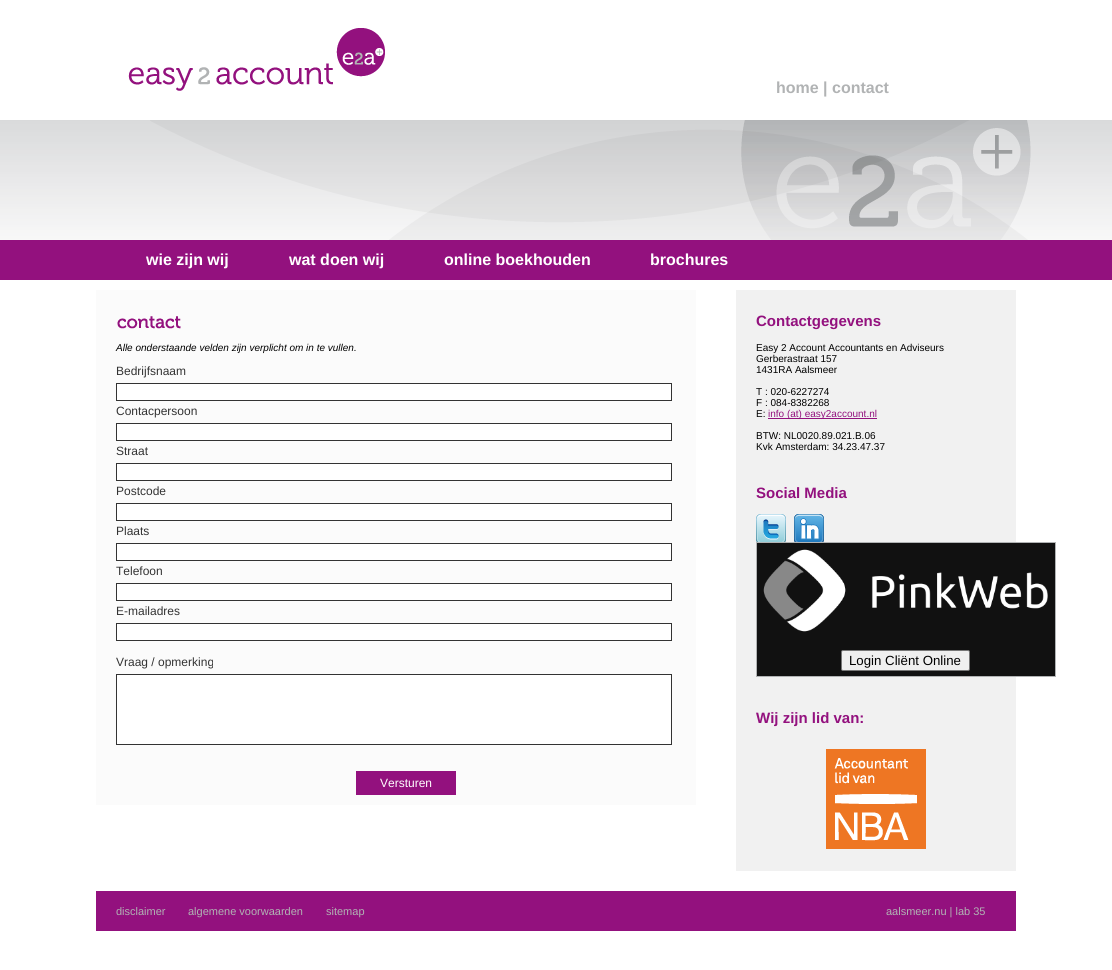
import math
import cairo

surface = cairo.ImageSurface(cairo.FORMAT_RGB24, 1112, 970)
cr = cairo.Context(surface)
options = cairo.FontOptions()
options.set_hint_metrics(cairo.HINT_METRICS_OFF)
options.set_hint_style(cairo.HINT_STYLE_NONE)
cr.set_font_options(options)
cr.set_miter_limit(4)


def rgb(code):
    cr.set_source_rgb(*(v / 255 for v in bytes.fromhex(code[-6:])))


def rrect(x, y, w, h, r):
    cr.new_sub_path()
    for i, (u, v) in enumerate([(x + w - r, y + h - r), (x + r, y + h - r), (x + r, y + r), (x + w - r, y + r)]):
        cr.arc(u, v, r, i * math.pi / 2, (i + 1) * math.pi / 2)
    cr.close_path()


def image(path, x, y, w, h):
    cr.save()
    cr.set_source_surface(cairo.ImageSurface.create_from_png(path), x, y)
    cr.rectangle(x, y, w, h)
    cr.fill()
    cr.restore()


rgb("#ffffff")
cr.paint()
image("img/1.png", 0, 120, 1112, 160)
image("img/2.png", 128, 28, 257, 63)
image("img/3.png", 150, 120, 881, 120)
rgb("#fbfbfb")
cr.rectangle(96, 290, 600, 515)
cr.fill()
image("img/4.png", 117, 316, 64, 13)
rgb("#ffffff")
cr.rectangle(116.5, 383.5, 555, 17)
cr.fill_preserve()
rgb("#333333")
cr.set_line_width(1)
cr.stroke()
rgb("#ffffff")
cr.rectangle(116.5, 423.5, 555, 17)
cr.fill_preserve()
rgb("#333333")
cr.stroke()
rgb("#ffffff")
cr.rectangle(116.5, 463.5, 555, 17)
cr.fill_preserve()
rgb("#333333")
cr.stroke()
rgb("#ffffff")
cr.rectangle(116.5, 503.5, 555, 17)
cr.fill_preserve()
rgb("#333333")
cr.stroke()
rgb("#ffffff")
cr.rectangle(116.5, 543.5, 555, 17)
cr.fill_preserve()
rgb("#333333")
cr.stroke()
rgb("#ffffff")
cr.rectangle(116.5, 583.5, 555, 17)
cr.fill_preserve()
rgb("#333333")
cr.stroke()
rgb("#ffffff")
cr.rectangle(116.5, 623.5, 555, 17)
cr.fill_preserve()
rgb("#333333")
cr.stroke()
rgb("#ffffff")
cr.rectangle(116.5, 674.5, 555, 70)
cr.fill_preserve()
rgb("#333333")
cr.stroke()
for x, y, w, h, color in [
    (356, 771, 100, 24, "#93117e"),
    (736, 290, 280, 581, "#f1f1f1"),
    (768, 418, 109, 1, "#93117e"),
]:
    rgb(color)
    cr.rectangle(x, y, w, h)
    cr.fill()
image("img/5.png", 756, 514, 30, 28)
image("img/6.png", 794, 514, 30, 28)
rgb("#111111")
cr.rectangle(756.5, 542.5, 299, 134)
cr.fill_preserve()
rgb("#b1b3b4")
cr.stroke()
image("img/7.png", 763, 549, 285, 83)
rgb("#efefef")
rrect(841.5, 650.5, 128, 20, 1.5)
cr.fill_preserve()
rgb("#767676")
cr.stroke()
image("img/8.png", 826, 749, 100, 100)
rgb("#93117e")
cr.rectangle(96, 891, 920, 40)
cr.fill()
cr.select_font_face("Liberation Sans", cairo.FONT_SLANT_NORMAL, cairo.FONT_WEIGHT_BOLD)
cr.set_font_size(16)
rgb("#b1b3b4")
cr.move_to(776, 93)
cr.show_text("home | contact")
rgb("#ffffff")
for x, y, s in [
    (146, 265, "wie zijn wij"),
    (289, 265, "wat doen wij"),
    (444, 265, "online boekhouden"),
    (650, 265, "brochures"),
]:
    cr.move_to(x, y)
    cr.show_text(s)
cr.select_font_face("Liberation Sans", cairo.FONT_SLANT_ITALIC)
cr.set_font_size(10)
rgb("#000000")
cr.move_to(116, 351)
cr.show_text("Alle onderstaande velden zijn verplicht om in te vullen.")
cr.select_font_face("Liberation Sans")
cr.set_font_size(12)
rgb("#333333")
for x, y, s in [
    (116, 375, "Bedrijfsnaam"),
    (116, 415, "Contacpersoon"),
    (116, 455, "Straat"),
    (116, 495, "Postcode"),
    (116, 535, "Plaats"),
    (116, 575, "Telefoon"),
    (116, 615, "E-mailadres"),
    (116, 666, "Vraag / opmerking"),
]:
    cr.move_to(x, y)
    cr.show_text(s)
rgb("#ffffff")
cr.move_to(380, 787)
cr.show_text("Versturen")
cr.select_font_face("Liberation Sans", cairo.FONT_SLANT_NORMAL, cairo.FONT_WEIGHT_BOLD)
cr.set_font_size(15)
rgb("#93117e")
cr.move_to(756, 326)
cr.show_text("Contactgegevens")
cr.select_font_face("Liberation Sans")
cr.set_font_size(10)
rgb("#000000")
for x, y, s in [
    (756, 351, "Easy 2 Account Accountants en Adviseurs"),
    (756, 362, "Gerberastraat 157"),
    (756, 373, "1431RA Aalsmeer"),
    (756, 395, "T : 020-6227274"),
    (756, 406, "F : 084-8382268"),
    (756, 417, "E:"),
]:
    cr.move_to(x, y)
    cr.show_text(s)
rgb("#93117e")
cr.move_to(768, 417)
cr.show_text("info (at) easy2account.nl")
rgb("#000000")
cr.move_to(756, 439)
cr.show_text("BTW: NL0020.89.021.B.06")
cr.move_to(756, 450)
cr.show_text("Kvk Amsterdam: 34.23.47.37")
cr.select_font_face("Liberation Sans", cairo.FONT_SLANT_NORMAL, cairo.FONT_WEIGHT_BOLD)
cr.set_font_size(15)
rgb("#93117e")
cr.move_to(756, 498)
cr.show_text("Social Media")
cr.select_font_face("Liberation Sans")
cr.set_font_size(13.25)
rgb("#000000")
cr.move_to(849, 665)
cr.show_text("Login Cliënt Online")
cr.select_font_face("Liberation Sans", cairo.FONT_SLANT_NORMAL, cairo.FONT_WEIGHT_BOLD)
cr.set_font_size(15)
rgb("#93117e")
cr.move_to(756, 723)
cr.show_text("Wij zijn lid van:")
cr.select_font_face("Liberation Sans")
cr.set_font_size(11)
rgb("#b1b3b4")
for x, y, s in [
    (116, 915, "disclaimer"),
    (188, 915, "algemene voorwaarden"),
    (326, 915, "sitemap"),
    (886, 915, "aalsmeer.nu | lab 35"),
]:
    cr.move_to(x, y)
    cr.show_text(s)
surface.write_to_png("page.png")
